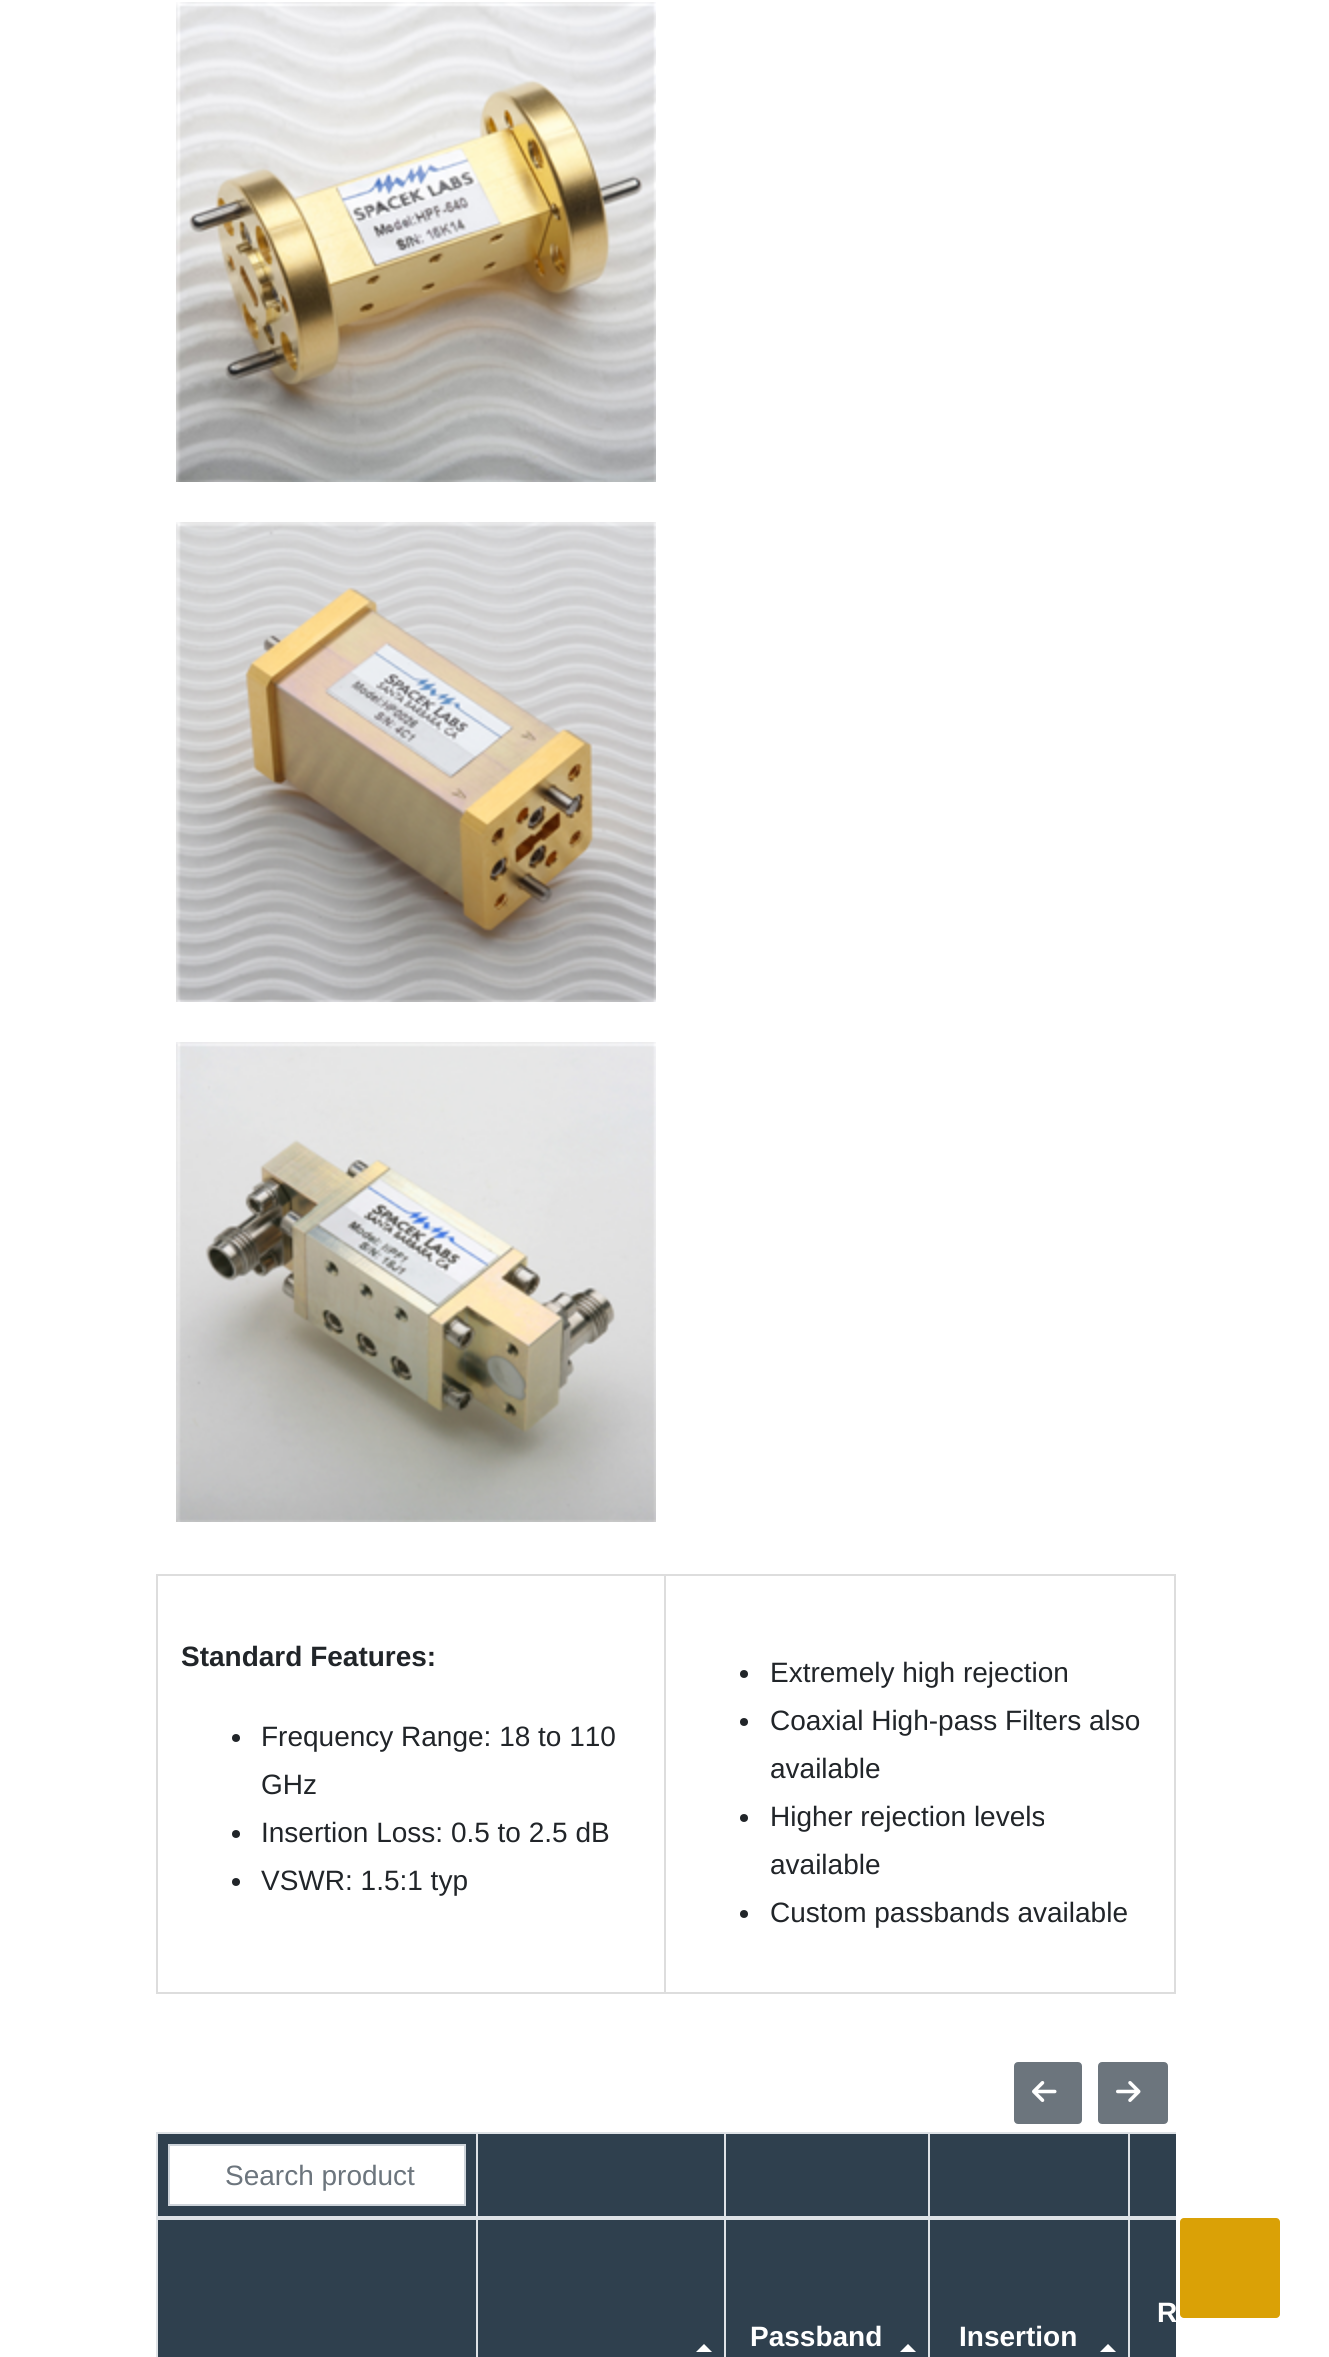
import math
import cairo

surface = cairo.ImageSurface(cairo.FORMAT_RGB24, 1329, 2357)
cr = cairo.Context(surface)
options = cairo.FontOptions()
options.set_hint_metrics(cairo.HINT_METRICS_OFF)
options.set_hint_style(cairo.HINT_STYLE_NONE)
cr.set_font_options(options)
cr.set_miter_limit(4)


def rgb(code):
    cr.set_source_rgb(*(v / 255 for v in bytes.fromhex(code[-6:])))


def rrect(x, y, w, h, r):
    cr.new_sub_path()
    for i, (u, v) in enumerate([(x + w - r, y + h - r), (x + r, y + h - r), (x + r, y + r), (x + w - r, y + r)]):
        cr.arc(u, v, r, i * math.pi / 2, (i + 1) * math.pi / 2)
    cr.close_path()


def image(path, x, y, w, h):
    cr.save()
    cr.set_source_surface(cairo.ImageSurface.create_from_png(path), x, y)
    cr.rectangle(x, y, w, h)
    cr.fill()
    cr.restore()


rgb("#ffffff")
cr.paint()
image("img/1.png", 176, 2, 480, 480)
image("img/2.png", 176, 522, 480, 480)
image("img/3.png", 176, 1042, 480, 480)
for x, y, w, h, color in [
    (664, 1574, 512, 2, "#dddddd"),
    (1174, 1574, 2, 420, "#dddddd"),
    (664, 1992, 512, 2, "#dddddd"),
    (664, 1574, 2, 420, "#dddddd"),
    (156, 1574, 510, 2, "#dddddd"),
    (156, 1992, 510, 2, "#dddddd"),
    (156, 1574, 2, 420, "#dddddd"),
]:
    rgb(color)
    cr.rectangle(x, y, w, h)
    cr.fill()
rgb("#212529")
cr.arc(236, 1738, 4, 0, 2 * math.pi)
cr.fill()
cr.arc(236, 1834, 4, 0, 2 * math.pi)
cr.fill()
cr.arc(236, 1882, 4, 0, 2 * math.pi)
cr.fill()
cr.arc(744, 1674, 4, 0, 2 * math.pi)
cr.fill()
cr.arc(744, 1722, 4, 0, 2 * math.pi)
cr.fill()
cr.arc(744, 1818, 4, 0, 2 * math.pi)
cr.fill()
cr.arc(744, 1914, 4, 0, 2 * math.pi)
cr.fill()
rgb("#6c757d")
rrect(1015, 2063, 66, 60, 3)
cr.fill_preserve()
cr.stroke()
image("img/4.png", 1032, 2081, 25, 21)
rrect(1099, 2063, 68, 60, 3)
cr.fill_preserve()
cr.stroke()
image("img/5.png", 1116, 2081, 25, 21)
for x, y, w, h, color in [
    (158, 2134, 1018, 82, "#2f404e"),
    (1128, 2132, 48, 2, "#dee2e6"),
    (158, 2220, 1018, 137, "#2f404e"),
    (1128, 2218, 2, 139, "#dee2e6"),
    (1128, 2132, 2, 88, "#dee2e6"),
    (928, 2132, 202, 2, "#dee2e6"),
    (928, 2218, 2, 139, "#dee2e6"),
    (928, 2132, 2, 88, "#dee2e6"),
    (724, 2132, 206, 2, "#dee2e6"),
    (724, 2218, 2, 139, "#dee2e6"),
    (724, 2132, 2, 88, "#dee2e6"),
    (476, 2132, 250, 2, "#dee2e6"),
    (476, 2218, 2, 139, "#dee2e6"),
    (476, 2132, 2, 88, "#dee2e6"),
    (156, 2132, 322, 2, "#dee2e6"),
    (156, 2218, 2, 139, "#dee2e6"),
    (156, 2132, 2, 88, "#dee2e6"),
    (156, 2216, 1020, 4, "#dee2e6"),
]:
    rgb(color)
    cr.rectangle(x, y, w, h)
    cr.fill()
rgb("#ffffff")
cr.rectangle(169, 2145, 296, 60)
cr.fill_preserve()
rgb("#ced4da")
cr.stroke()
rgb("#ffffff")
cr.new_path()
cr.move_to(712, 2352)
cr.line_to(696, 2352)
cr.line_to(704, 2344)
cr.close_path()
cr.fill()
cr.new_path()
cr.move_to(916, 2352)
cr.line_to(900, 2352)
cr.line_to(908, 2344)
cr.close_path()
cr.fill()
cr.new_path()
cr.move_to(1116, 2352)
cr.line_to(1100, 2352)
cr.line_to(1108, 2344)
cr.close_path()
cr.fill()
rgb("#daa106")
rrect(1180, 2218, 100, 100, 4)
cr.fill()
cr.select_font_face("Liberation Sans", cairo.FONT_SLANT_NORMAL, cairo.FONT_WEIGHT_BOLD)
cr.set_font_size(28)
rgb("#212529")
cr.move_to(181, 1666)
cr.show_text("Standard Features:")
cr.select_font_face("Liberation Sans")
for x, y, s in [
    (261, 1746, "Frequency Range: 18 to 110"),
    (261, 1794, "GHz"),
    (261, 1842, "Insertion Loss: 0.5 to 2.5 dB"),
    (261, 1890, "VSWR: 1.5:1 typ"),
    (770, 1682, "Extremely high rejection"),
    (770, 1730, "Coaxial High-pass Filters also"),
    (770, 1778, "available"),
    (770, 1826, "Higher rejection levels"),
    (770, 1874, "available"),
    (770, 1922, "Custom passbands available"),
]:
    cr.move_to(x, y)
    cr.show_text(s)
rgb("#6c757d")
cr.move_to(225, 2185)
cr.show_text("Search product")
cr.select_font_face("Liberation Sans", cairo.FONT_SLANT_NORMAL, cairo.FONT_WEIGHT_BOLD)
rgb("#ffffff")
for x, y, s in [
    (1157, 2322, "R"),
    (750, 2346, "Passband"),
    (959, 2346, "Insertion"),
]:
    cr.move_to(x, y)
    cr.show_text(s)
surface.write_to_png("page.png")
